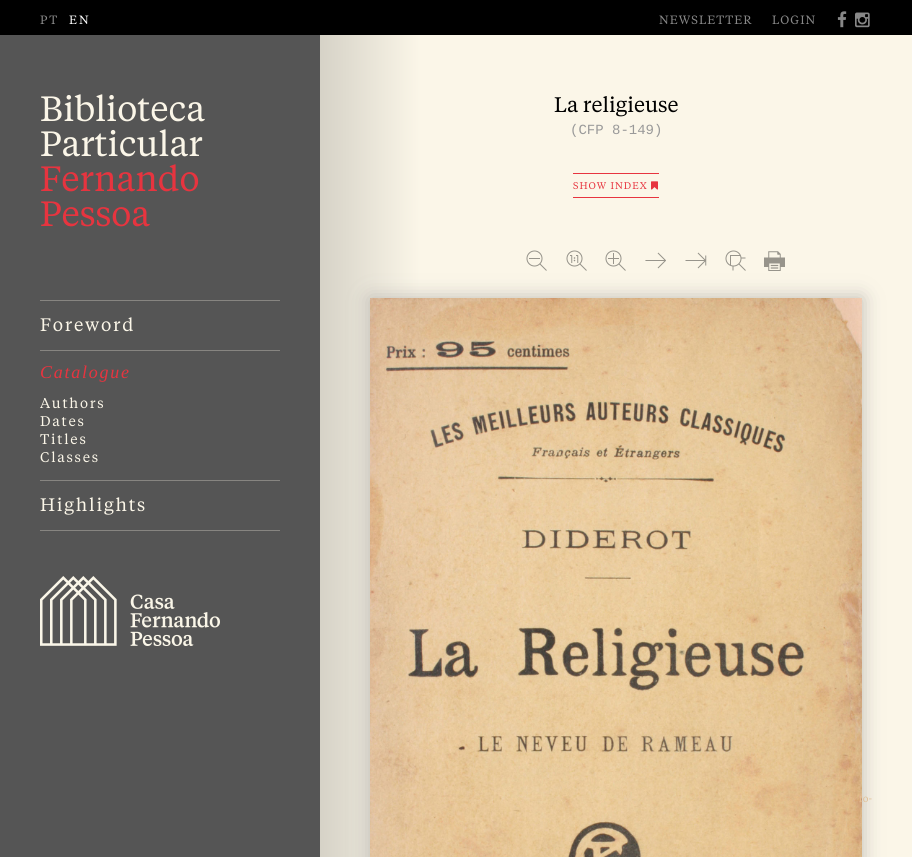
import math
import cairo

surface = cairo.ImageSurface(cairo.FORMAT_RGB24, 912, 857)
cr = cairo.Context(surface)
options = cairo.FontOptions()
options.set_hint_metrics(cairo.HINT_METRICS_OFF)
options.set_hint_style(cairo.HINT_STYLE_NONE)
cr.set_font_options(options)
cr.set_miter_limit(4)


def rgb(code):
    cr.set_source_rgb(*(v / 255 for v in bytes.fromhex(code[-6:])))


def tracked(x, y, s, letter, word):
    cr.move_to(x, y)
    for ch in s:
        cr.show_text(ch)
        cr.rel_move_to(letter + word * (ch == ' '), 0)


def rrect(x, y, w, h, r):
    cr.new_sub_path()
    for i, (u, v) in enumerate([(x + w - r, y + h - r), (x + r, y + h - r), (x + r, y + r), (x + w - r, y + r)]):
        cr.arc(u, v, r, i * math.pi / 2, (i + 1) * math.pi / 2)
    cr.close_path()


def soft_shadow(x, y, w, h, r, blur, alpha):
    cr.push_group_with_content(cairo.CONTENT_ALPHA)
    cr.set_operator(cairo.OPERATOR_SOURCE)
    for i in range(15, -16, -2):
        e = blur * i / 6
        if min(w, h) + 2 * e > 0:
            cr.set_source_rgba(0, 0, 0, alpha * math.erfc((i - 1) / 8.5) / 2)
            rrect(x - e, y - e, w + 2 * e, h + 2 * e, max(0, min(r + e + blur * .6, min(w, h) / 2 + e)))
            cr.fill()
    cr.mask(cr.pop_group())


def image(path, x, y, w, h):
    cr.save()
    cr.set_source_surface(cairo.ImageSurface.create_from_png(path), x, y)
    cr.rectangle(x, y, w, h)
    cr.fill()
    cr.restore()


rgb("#000000")
cr.paint()
image("img/1.png", 837, 11, 10, 17)
image("img/2.png", 855, 12, 15, 16)
rgb("#fbf6e8")
cr.rectangle(420, 35, 492, 822)
cr.fill()
gradient = cairo.LinearGradient(320, 619, 420, 619)
gradient.add_color_stop_rgba(0, 0.839, 0.824, 0.78, 1)
gradient.add_color_stop_rgba(1, 0.984, 0.965, 0.91, 1)
cr.set_source(gradient)
cr.rectangle(320, 35, 100, 822)
cr.fill()
for x, y, w, h, color in [
    (0, 35, 320, 822, "#555555"),
    (40, 300, 240, 1, "#878581"),
    (40, 350, 240, 1, "#878581"),
    (40, 480, 240, 1, "#878581"),
    (40, 530, 240, 1, "#878581"),
]:
    rgb(color)
    cr.rectangle(x, y, w, h)
    cr.fill()
image("img/3.png", 40, 576, 180, 70)
rgb("#e7343f")
cr.rectangle(573, 173, 86, 1)
cr.fill()
cr.rectangle(573, 197, 86, 1)
cr.fill()
image("img/4.png", 651, 181, 7, 9)
rgb("#bebbb6")
soft_shadow(370, 298, 492, 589, 0, 10, 1)
image("img/5.png", 526, 250, 21, 21)
image("img/6.png", 566, 250, 21, 21)
image("img/7.png", 605, 250, 21, 21)
image("img/8.png", 645, 252, 21, 17)
image("img/9.png", 685, 252, 22, 17)
image("img/10.png", 725, 250, 21, 21)
image("img/11.png", 764, 251, 21, 20)
image("img/12.png", 370, 298, 492, 559)
cr.select_font_face("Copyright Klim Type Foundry")
cr.set_font_size(12)
rgb("#888888")
tracked(40, 24, "PT", 2, 0)
rgb("#ffffff")
tracked(69, 24, "EN", 2, 0)
rgb("#888888")
tracked(659, 24, "NEWSLETTER", 1, 0)
tracked(772, 24, "LOGIN", 1, 0)
cr.set_font_size(35)
rgb("#fbf6e8")
cr.move_to(40, 121)
cr.show_text("Biblioteca")
cr.move_to(40, 156)
cr.show_text("Particular")
rgb("#e7343f")
cr.move_to(40, 191)
cr.show_text("Fernando")
cr.move_to(40, 226)
cr.show_text("Pessoa")
cr.set_font_size(18)
rgb("#fbf6e8")
tracked(40, 331, "Foreword", 1.75, 0)
cr.select_font_face("Liberation Serif", cairo.FONT_SLANT_ITALIC)
rgb("#e7343f")
tracked(40, 378, "Catalogue", 1.75, 0)
cr.select_font_face("Copyright Klim Type Foundry")
cr.set_font_size(14)
rgb("#fbf6e8")
for x, y, s in [
    (40, 408, "Authors"),
    (40, 426, "Dates"),
    (40, 444, "Titles"),
    (40, 462, "Classes"),
]:
    tracked(x, y, s, 1.75, 0)
cr.set_font_size(18)
tracked(40, 511, "Highlights", 1.75, 0)
cr.set_font_size(21)
rgb("#000000")
cr.move_to(554, 112)
cr.show_text("La religieuse")
cr.select_font_face("Liberation Mono")
cr.set_font_size(14)
rgb("#999999")
cr.move_to(570, 134)
cr.show_text("(CFP 8-149)")
cr.select_font_face("Copyright Klim Type Foundry")
cr.set_font_size(9.75)
rgb("#e7343f")
tracked(573, 189, "SHOW INDEX", 1, 0)
cr.set_font_size(10)
rgb("#e0bf96")
cr.move_to(859, 802)
cr.show_text("to-")
surface.write_to_png("page.png")
